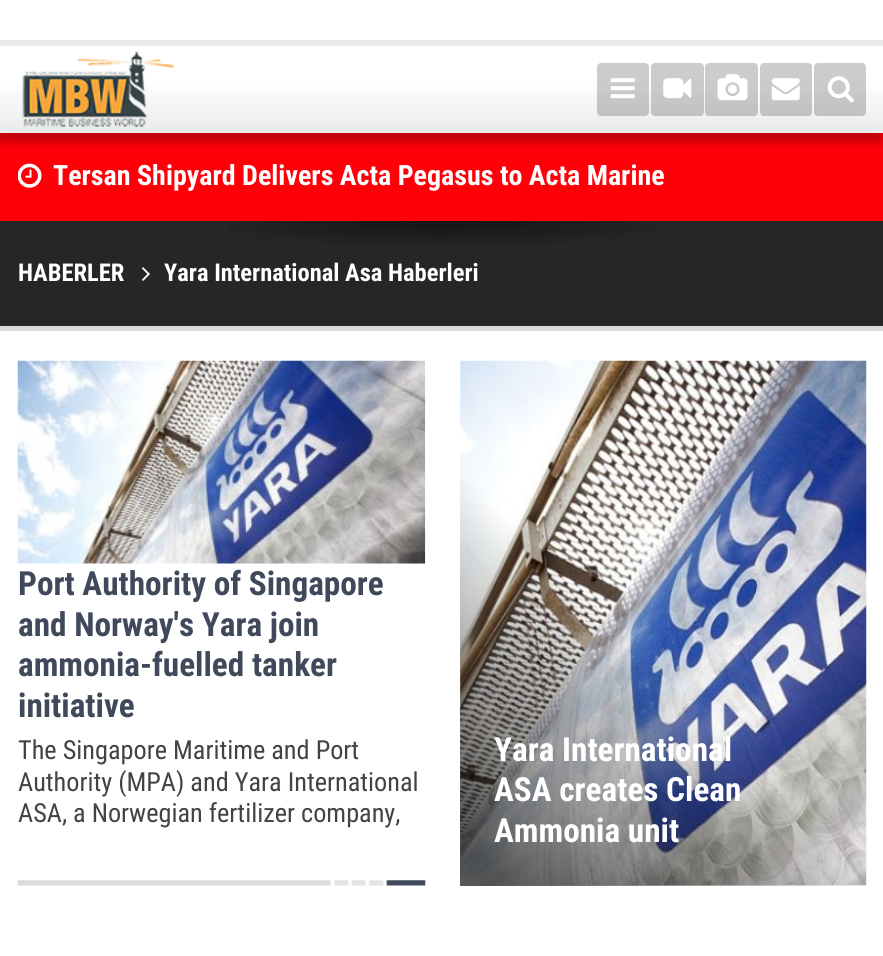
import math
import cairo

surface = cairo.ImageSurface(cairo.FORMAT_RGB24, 883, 956)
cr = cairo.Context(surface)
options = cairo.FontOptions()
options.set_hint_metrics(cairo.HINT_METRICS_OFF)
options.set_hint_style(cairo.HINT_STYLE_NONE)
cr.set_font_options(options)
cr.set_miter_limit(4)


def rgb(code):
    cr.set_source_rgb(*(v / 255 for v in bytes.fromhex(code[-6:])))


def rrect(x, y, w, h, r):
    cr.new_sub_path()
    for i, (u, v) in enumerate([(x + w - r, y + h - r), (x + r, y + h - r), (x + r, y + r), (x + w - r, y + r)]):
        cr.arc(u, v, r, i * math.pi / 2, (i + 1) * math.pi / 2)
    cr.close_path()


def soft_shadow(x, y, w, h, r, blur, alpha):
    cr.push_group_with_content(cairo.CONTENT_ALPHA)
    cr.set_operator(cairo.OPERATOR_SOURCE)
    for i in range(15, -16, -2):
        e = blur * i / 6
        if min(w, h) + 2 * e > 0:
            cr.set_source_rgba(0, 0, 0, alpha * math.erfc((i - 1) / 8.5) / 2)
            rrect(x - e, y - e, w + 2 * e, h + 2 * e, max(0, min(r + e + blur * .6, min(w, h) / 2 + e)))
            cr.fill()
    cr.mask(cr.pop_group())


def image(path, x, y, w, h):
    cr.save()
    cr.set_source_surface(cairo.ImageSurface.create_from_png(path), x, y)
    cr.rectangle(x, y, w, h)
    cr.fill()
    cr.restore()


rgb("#ffffff")
cr.paint()
rgb("#ff0009")
cr.rectangle(0, 133, 883, 88)
cr.fill()
rgb("#000000")
soft_shadow(-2, 49, 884, 93, 0, 4.5, 0.25)
gradient = cairo.LinearGradient(442, -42, 442, 46)
gradient.add_color_stop_rgba(0.4, 1, 1, 1, 1)
gradient.add_color_stop_rgba(1, 0.918, 0.918, 0.918, 1)
cr.set_source(gradient)
cr.rectangle(0, 45, 883, 1)
cr.fill()
gradient = cairo.LinearGradient(442, 45, 442, 133)
gradient.add_color_stop_rgba(0.4, 1, 1, 1, 1)
gradient.add_color_stop_rgba(1, 0.918, 0.918, 0.918, 1)
cr.set_source(gradient)
cr.rectangle(0, 46, 883, 87)
cr.fill()
rgb("#eaeaea")
cr.rectangle(0, 40, 883, 5)
cr.fill()
image("img/1.png", 22, 51, 153, 76)
cr.set_source_rgba(0, 0, 0, 0.2)
rrect(597, 63, 52, 53, 4)
cr.fill()
image("img/2.png", 610, 78, 25, 21)
rrect(651, 63, 53, 53, 4)
cr.fill()
image("img/3.png", 663, 78, 29, 21)
rrect(705, 63, 53, 53, 4)
cr.fill()
image("img/4.png", 717, 74, 31, 27)
rrect(760, 63, 52, 53, 4)
cr.fill()
image("img/5.png", 771, 78, 29, 23)
rrect(814, 63, 52, 53, 4)
cr.fill()
image("img/6.png", 827, 76, 27, 27)
image("img/7.png", 18, 163, 24, 25)
rgb("#262626")
cr.rectangle(0, 221, 883, 105)
cr.fill()
gradient = cairo.RadialGradient(0, 0, 0, 0, 0, 1)
gradient.set_matrix(cairo.Matrix(1 / 625, 0, 0, 1 / 76, -1 * 442 / 625, -1 * 219 / 76))
gradient.add_color_stop_rgba(0, 0, 0, 0, 0.5)
gradient.add_color_stop_rgba(0.4, 0, 0, 0, 0)
cr.set_source(gradient)
cr.rectangle(228, 221, 428, 24)
cr.fill()
image("img/8.png", 142, 267, 8, 14)
rgb("#d9d9d9")
cr.rectangle(0, 326, 883, 5)
cr.fill()
image("img/9.png", 17, 880, 409, 6)
image("img/10.png", 17, 360, 409, 204)
image("img/11.png", 460, 360, 407, 526)
gradient = cairo.LinearGradient(431, 856, 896, 390)
gradient.add_color_stop_rgba(0.05, 0, 0, 0, 0.65)
gradient.add_color_stop_rgba(0.45, 0, 0, 0, 0)
cr.set_source(gradient)
cr.rectangle(460, 479, 406, 407)
cr.fill()
cr.select_font_face("Roboto Condensed", cairo.FONT_SLANT_NORMAL, cairo.FONT_WEIGHT_BOLD)
cr.set_font_size(28)
rgb("#ffffff")
cr.move_to(53, 185)
cr.show_text("Tersan Shipyard Delivers Acta Pegasus to Acta Marine")
cr.set_font_size(24.5)
cr.move_to(18, 281)
cr.show_text("HABERLER")
cr.move_to(164, 281)
cr.show_text("Yara International Asa Haberleri")
cr.set_font_size(33.25)
rgb("#3f495b")
for x, y, s in [
    (18, 595, "Port Authority of Singapore"),
    (18, 636, "and Norway's Yara join"),
    (18, 676, "ammonia-fuelled tanker"),
    (18, 717, "initiative"),
]:
    cr.move_to(x, y)
    cr.show_text(s)
cr.select_font_face("Roboto Condensed")
cr.set_font_size(26.25)
rgb("#434343")
for x, y, s in [
    (18, 759, "The Singapore Maritime and Port"),
    (18, 791, "Authority (MPA) and Yara International"),
    (18, 822, "ASA, a Norwegian fertilizer company,"),
]:
    cr.move_to(x, y)
    cr.show_text(s)
cr.select_font_face("Roboto Condensed", cairo.FONT_SLANT_NORMAL, cairo.FONT_WEIGHT_BOLD)
cr.set_font_size(33.25)
rgb("#ffffff")
for x, y, s in [
    (494, 761, "Yara International"),
    (494, 801, "ASA creates Clean"),
    (494, 842, "Ammonia unit"),
]:
    cr.move_to(x, y)
    cr.show_text(s)
surface.write_to_png("page.png")
